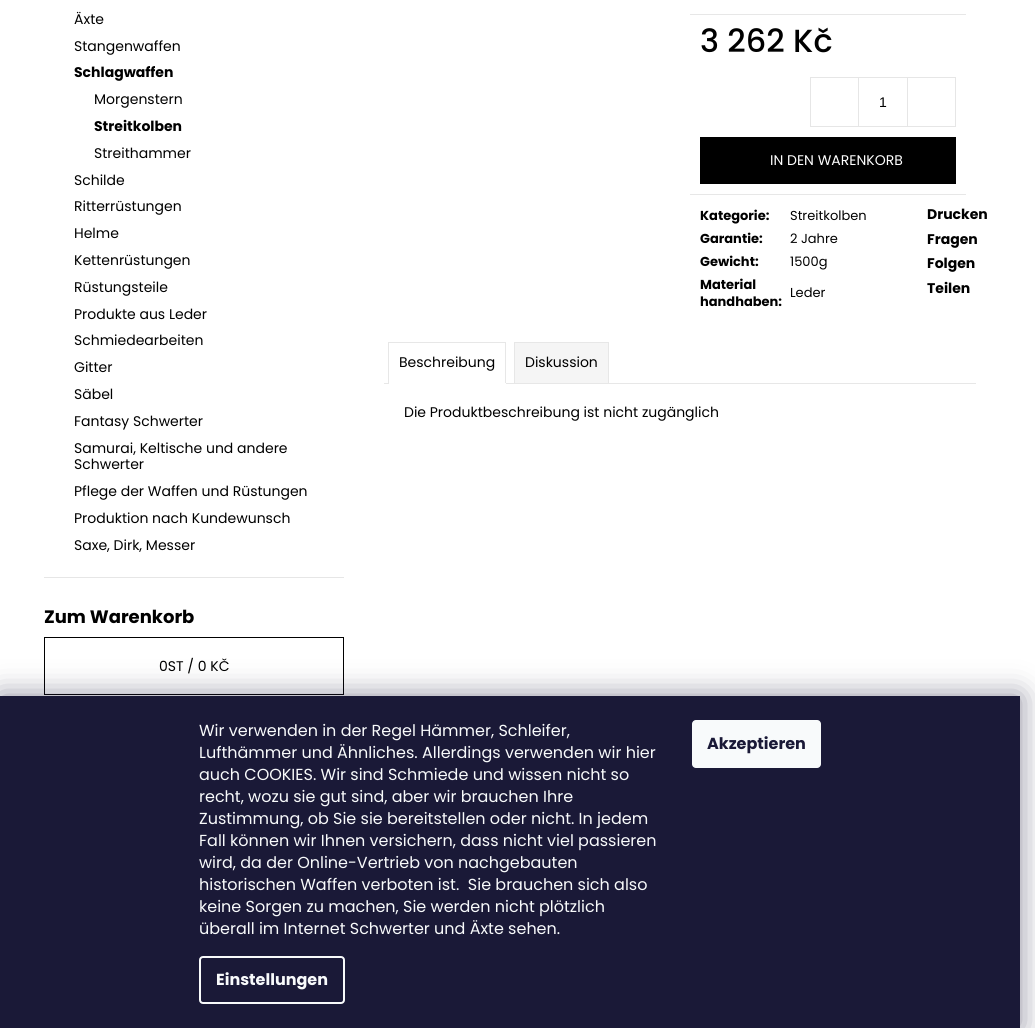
import math
import cairo

surface = cairo.ImageSurface(cairo.FORMAT_RGB24, 1035, 1028)
cr = cairo.Context(surface)
options = cairo.FontOptions()
options.set_hint_metrics(cairo.HINT_METRICS_OFF)
options.set_hint_style(cairo.HINT_STYLE_NONE)
cr.set_font_options(options)
cr.set_miter_limit(4)


def rgb(code):
    cr.set_source_rgb(*(v / 255 for v in bytes.fromhex(code[-6:])))


def rrect(x, y, w, h, r):
    cr.new_sub_path()
    for i, (u, v) in enumerate([(x + w - r, y + h - r), (x + r, y + h - r), (x + r, y + r), (x + w - r, y + r)]):
        cr.arc(u, v, r, i * math.pi / 2, (i + 1) * math.pi / 2)
    cr.close_path()


def soft_shadow(x, y, w, h, r, blur, alpha):
    cr.push_group_with_content(cairo.CONTENT_ALPHA)
    cr.set_operator(cairo.OPERATOR_SOURCE)
    for i in range(15, -16, -2):
        e = blur * i / 6
        if min(w, h) + 2 * e > 0:
            cr.set_source_rgba(0, 0, 0, alpha * math.erfc((i - 1) / 8.5) / 2)
            rrect(x - e, y - e, w + 2 * e, h + 2 * e, max(0, min(r + e + blur * .6, min(w, h) / 2 + e)))
            cr.fill()
    cr.mask(cr.pop_group())


rgb("#ffffff")
cr.paint()
rgb("#e6e6e6")
cr.rectangle(44, 577, 300, 1)
cr.fill()
cr.rectangle(44.5, 637.5, 299, 57)
rgb("#000000")
cr.set_line_width(1)
cr.stroke()
rgb("#e7e7e7")
cr.rectangle(690, 14, 276, 1)
cr.fill()
cr.rectangle(690, 194, 276, 1)
cr.fill()
cr.rectangle(810.5, 77.5, 145, 49)
rgb("#e6e6e6")
cr.stroke()
for x, y, w, h, color in [
    (858, 78, 1, 48, "#e6e6e6"),
    (907, 78, 1, 48, "#e6e6e6"),
    (700, 137, 256, 47, "#000000"),
    (384, 383, 592, 1, "#e7e7e7"),
    (388, 342, 118, 1, "#e7e7e7"),
    (505, 342, 1, 42, "#e7e7e7"),
    (388, 383, 118, 1, "#ffffff"),
    (388, 342, 1, 42, "#e7e7e7"),
]:
    rgb(color)
    cr.rectangle(x, y, w, h)
    cr.fill()
rgb("#f5f5f5")
cr.rectangle(514.5, 342.5, 94, 41)
cr.fill_preserve()
rgb("#e7e7e7")
cr.stroke()
rgb("#1b1939")
soft_shadow(0, 696, 1020, 332, 0, 15, 0.5)
rgb("#1a1937")
cr.rectangle(0, 696, 1020, 332)
cr.fill()
rrect(200, 957, 144, 46, 3)
rgb("#f8fafb")
cr.set_line_width(2)
cr.stroke()
rrect(692, 720, 129, 48, 4)
cr.fill()
cr.select_font_face("Poppins")
cr.set_font_size(14)
rgb("#000000")
cr.move_to(74, 24)
cr.show_text("Äxte")
cr.move_to(74, 51)
cr.show_text("Stangenwaffen")
cr.select_font_face("Poppins", cairo.FONT_SLANT_NORMAL, cairo.FONT_WEIGHT_BOLD)
cr.move_to(74, 77)
cr.show_text("Schlagwaffen")
cr.select_font_face("Poppins")
cr.move_to(94, 104)
cr.show_text("Morgenstern")
cr.select_font_face("Poppins", cairo.FONT_SLANT_NORMAL, cairo.FONT_WEIGHT_BOLD)
cr.move_to(94, 131)
cr.show_text("Streitkolben")
cr.select_font_face("Poppins")
for x, y, s in [
    (94, 158, "Streithammer"),
    (74, 185, "Schilde"),
    (74, 211, "Ritterrüstungen"),
    (74, 238, "Helme"),
    (74, 265, "Kettenrüstungen"),
    (74, 292, "Rüstungsteile"),
    (74, 319, "Produkte aus Leder"),
    (74, 345, "Schmiedearbeiten"),
    (74, 372, "Gitter"),
    (74, 399, "Säbel"),
    (74, 426, "Fantasy Schwerter"),
    (74, 453, "Samurai, Keltische und andere"),
    (74, 469, "Schwerter"),
    (74, 496, "Pflege der Waffen und Rüstungen"),
    (74, 523, "Produktion nach Kundewunsch"),
    (74, 550, "Saxe, Dirk, Messer"),
]:
    cr.move_to(x, y)
    cr.show_text(s)
cr.select_font_face("Poppins", cairo.FONT_SLANT_NORMAL, cairo.FONT_WEIGHT_BOLD)
cr.set_font_size(18)
cr.move_to(44, 623)
cr.show_text("Zum Warenkorb")
cr.select_font_face("Poppins")
cr.set_font_size(14)
cr.move_to(159, 671)
cr.show_text("0ST / 0 KČ")
cr.select_font_face("Poppins Medium")
cr.set_font_size(32)
cr.move_to(700, 52)
cr.show_text("3 262 Kč")
cr.select_font_face("Liberation Sans")
cr.set_font_size(14)
cr.move_to(879, 107)
cr.show_text("1")
cr.select_font_face("Poppins")
rgb("#ffffff")
cr.move_to(770, 165)
cr.show_text("IN DEN WARENKORB")
cr.select_font_face("Poppins", cairo.FONT_SLANT_NORMAL, cairo.FONT_WEIGHT_BOLD)
cr.set_font_size(13)
rgb("#000000")
cr.move_to(700, 220)
cr.show_text("Kategorie:")
cr.select_font_face("Poppins")
cr.move_to(790, 220)
cr.show_text("Streitkolben")
cr.select_font_face("Poppins", cairo.FONT_SLANT_NORMAL, cairo.FONT_WEIGHT_BOLD)
cr.move_to(700, 243)
cr.show_text("Garantie:")
cr.select_font_face("Poppins")
cr.move_to(790, 243)
cr.show_text("2 Jahre")
cr.select_font_face("Poppins", cairo.FONT_SLANT_NORMAL, cairo.FONT_WEIGHT_BOLD)
cr.move_to(700, 266)
cr.show_text("Gewicht:")
cr.select_font_face("Poppins")
cr.move_to(790, 266)
cr.show_text("1500g")
cr.select_font_face("Poppins", cairo.FONT_SLANT_NORMAL, cairo.FONT_WEIGHT_BOLD)
cr.move_to(700, 289)
cr.show_text("Material")
cr.move_to(700, 306)
cr.show_text("handhaben:")
cr.select_font_face("Poppins")
cr.move_to(790, 297)
cr.show_text("Leder")
cr.select_font_face("Poppins", cairo.FONT_SLANT_NORMAL, cairo.FONT_WEIGHT_BOLD)
cr.set_font_size(14)
for x, y, s in [
    (927, 219, "Drucken"),
    (927, 244, "Fragen"),
    (927, 268, "Folgen"),
    (927, 293, "Teilen"),
]:
    cr.move_to(x, y)
    cr.show_text(s)
cr.select_font_face("Poppins")
for x, y, s in [
    (399, 367, "Beschreibung"),
    (525, 367, "Diskussion"),
    (404, 417, "Die Produktbeschreibung ist nicht zugänglich"),
]:
    cr.move_to(x, y)
    cr.show_text(s)
cr.set_font_size(16)
rgb("#f8fafb")
for x, y, s in [
    (199, 736, "Wir verwenden in der Regel Hämmer, Schleifer,"),
    (199, 758, "Lufthämmer und Ähnliches. Allerdings verwenden wir hier"),
    (199, 780, "auch COOKIES. Wir sind Schmiede und wissen nicht so"),
    (199, 802, "recht, wozu sie gut sind, aber wir brauchen Ihre"),
    (199, 824, "Zustimmung, ob Sie sie bereitstellen oder nicht. In jedem"),
    (199, 846, "Fall können wir Ihnen versichern, dass nicht viel passieren"),
    (199, 868, "wird, da der Online-Vertrieb von nachgebauten"),
    (199, 890, "historischen Waffen verboten ist.  Sie brauchen sich also"),
    (199, 912, "keine Sorgen zu machen, Sie werden nicht plötzlich"),
    (199, 934, "überall im Internet Schwerter und Äxte sehen."),
]:
    cr.move_to(x, y)
    cr.show_text(s)
cr.select_font_face("Poppins", cairo.FONT_SLANT_NORMAL, cairo.FONT_WEIGHT_BOLD)
cr.move_to(216, 985)
cr.show_text("Einstellungen")
rgb("#1a1937")
cr.move_to(707, 749)
cr.show_text("Akzeptieren")
surface.write_to_png("page.png")
